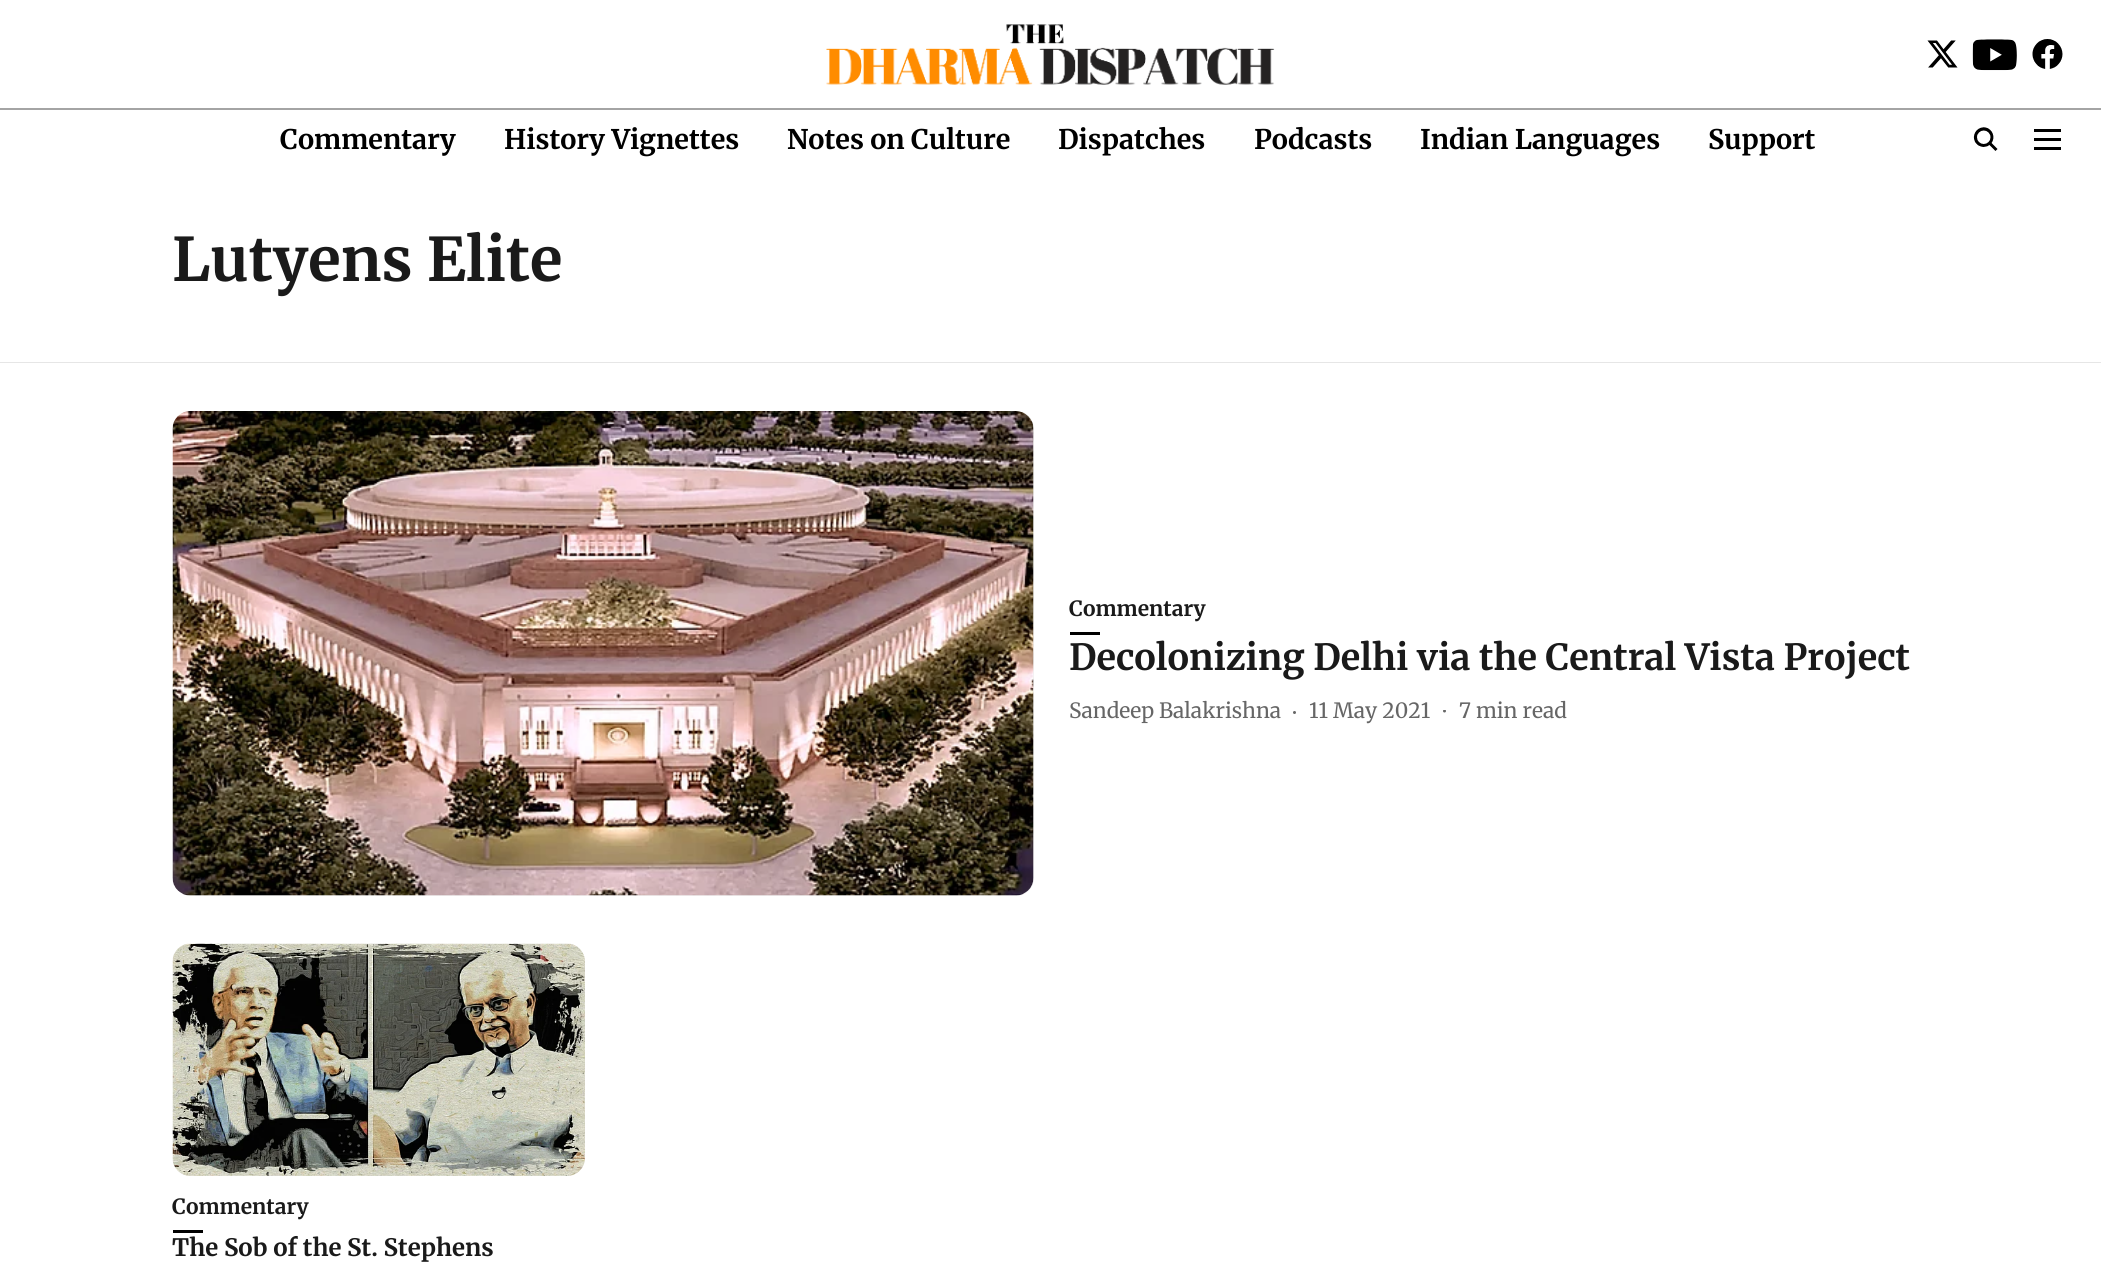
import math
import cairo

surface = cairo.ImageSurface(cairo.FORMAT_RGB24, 2101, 1269)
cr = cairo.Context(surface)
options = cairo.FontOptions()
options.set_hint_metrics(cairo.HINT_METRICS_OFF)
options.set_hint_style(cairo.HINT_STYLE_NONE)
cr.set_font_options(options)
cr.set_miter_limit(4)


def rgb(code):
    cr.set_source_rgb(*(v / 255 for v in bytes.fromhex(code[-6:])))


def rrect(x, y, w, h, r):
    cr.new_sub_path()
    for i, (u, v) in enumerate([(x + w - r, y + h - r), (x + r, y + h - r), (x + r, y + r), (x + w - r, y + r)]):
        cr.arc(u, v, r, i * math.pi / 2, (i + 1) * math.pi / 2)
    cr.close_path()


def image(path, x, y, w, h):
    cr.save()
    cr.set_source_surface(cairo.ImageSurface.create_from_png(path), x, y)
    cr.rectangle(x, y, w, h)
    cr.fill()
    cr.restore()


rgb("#ffffff")
cr.paint()
rgb("#a4a4a4")
cr.rectangle(0, 108, 2101, 2)
cr.fill()
image("img/1.png", 826, 24, 449, 61)
image("img/2.png", 1927, 40, 31, 28)
image("img/3.png", 1972, 39, 45, 32)
image("img/4.png", 2032, 39, 31, 30)
image("img/5.png", 1973, 127, 25, 24)
image("img/6.png", 2034, 129, 27, 21)
rgb("#e6e6e6")
cr.rectangle(0, 362, 2101, 1)
cr.fill()
rgb("#f0f0f0")
rrect(173, 411, 861, 485, 18)
cr.fill()
image("img/7.png", 172, 411, 862, 485)
rgb("#000000")
cr.rectangle(1070, 632, 30, 3)
cr.fill()
rgb("#666666")
cr.arc(1294.5, 712.5, 1.5, 0, 2 * math.pi)
cr.fill()
cr.save()
cr.rectangle(1443, 710, 5, 5)
cr.clip()
cr.arc(1444.5, 711, 1.5, 0, 2 * math.pi)
cr.fill()
cr.restore()
image("img/8.png", 172, 943, 413, 233)
rgb("#000000")
cr.rectangle(173, 1230, 30, 3)
cr.fill()
cr.select_font_face("Merriweather Light")
cr.set_font_size(27)
for x, y, s in [
    (280, 149, "Commentary"),
    (504, 149, "History Vignettes"),
    (787, 149, "Notes on Culture"),
    (1058, 149, "Dispatches"),
    (1254, 149, "Podcasts"),
    (1420, 149, "Indian Languages"),
    (1708, 149, "Support"),
]:
    cr.move_to(x, y)
    cr.show_text(s)
cr.set_font_size(60)
rgb("#1a1a1a")
cr.move_to(172, 281)
cr.show_text("Lutyens Elite")
cr.set_font_size(21)
cr.move_to(1069, 616)
cr.show_text("Commentary")
cr.set_font_size(36)
cr.move_to(1069, 670)
cr.show_text("Decolonizing Delhi via the Central Vista Project")
cr.select_font_face("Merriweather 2 Light")
cr.set_font_size(21)
rgb("#666666")
for x, y, s in [
    (1069, 718, "Sandeep Balakrishna"),
    (1309, 718, "11 May 2021"),
    (1459, 718, "7 min read"),
]:
    cr.move_to(x, y)
    cr.show_text(s)
cr.select_font_face("Merriweather Light")
rgb("#1a1a1a")
cr.move_to(172, 1214)
cr.show_text("Commentary")
cr.set_font_size(24)
cr.move_to(172, 1256)
cr.show_text("The Sob of the St. Stephens")
surface.write_to_png("page.png")
